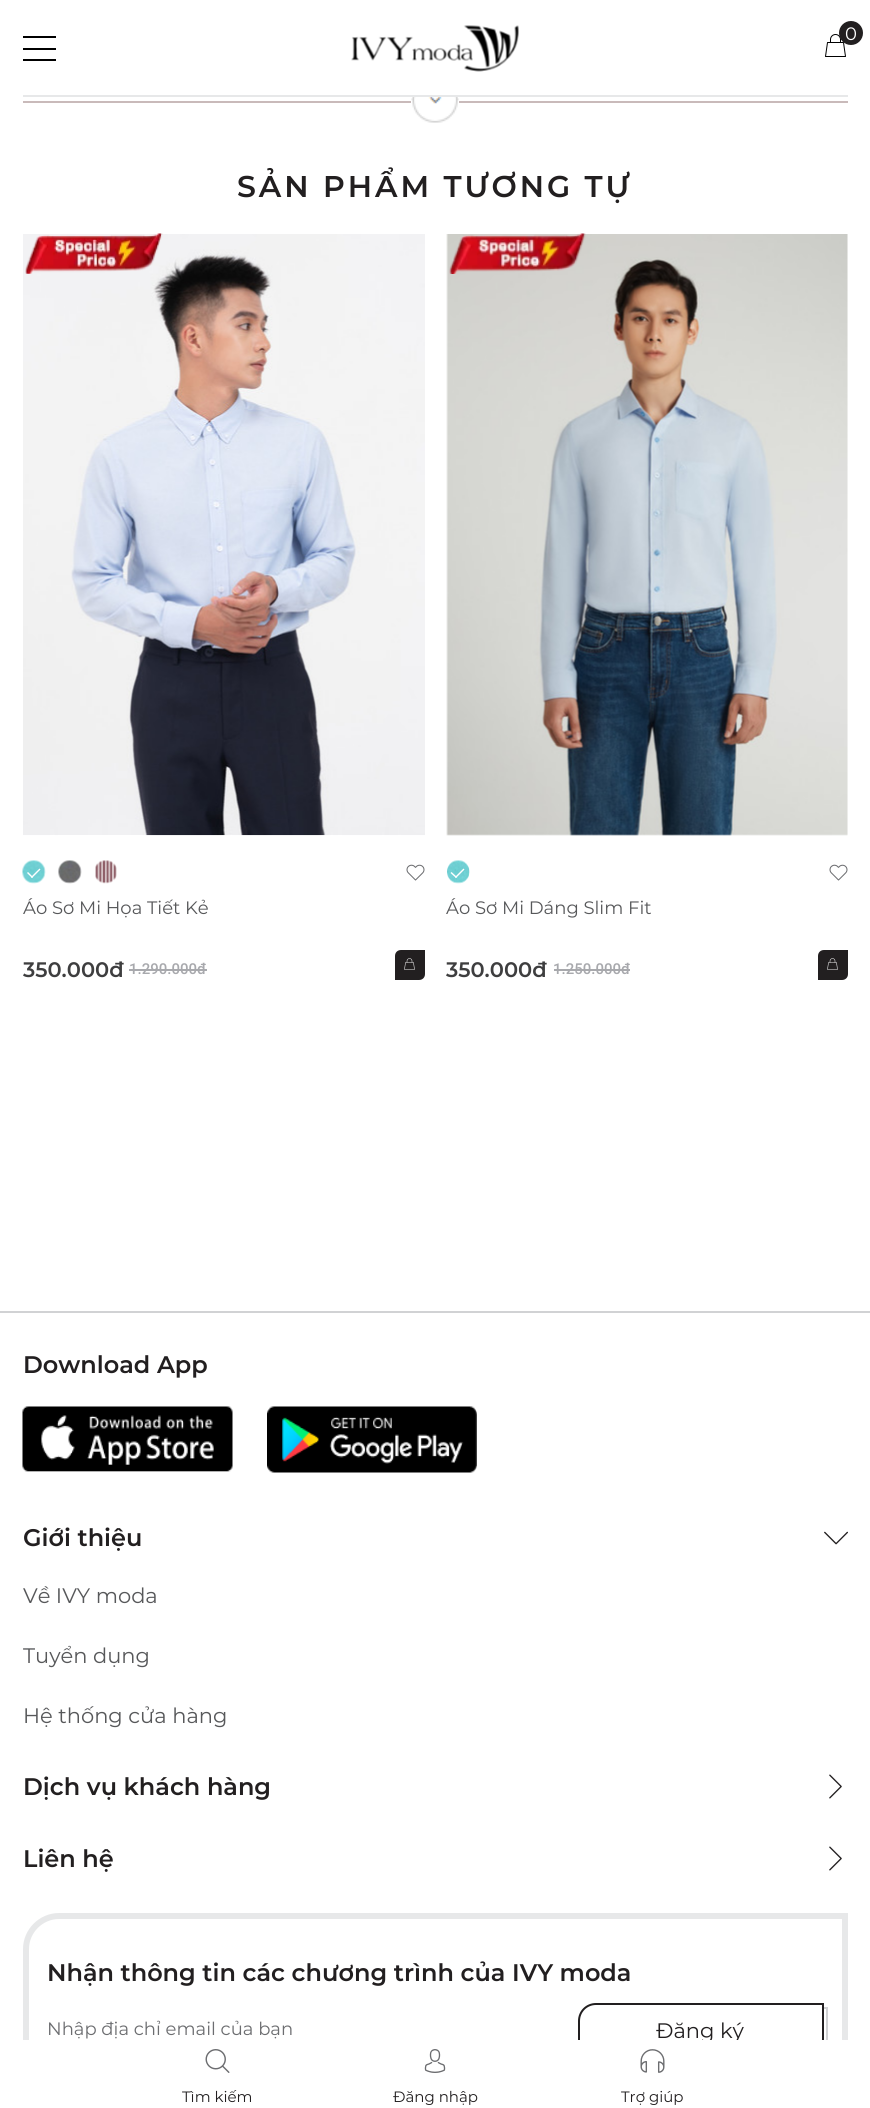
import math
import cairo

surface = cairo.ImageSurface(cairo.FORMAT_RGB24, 870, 2108)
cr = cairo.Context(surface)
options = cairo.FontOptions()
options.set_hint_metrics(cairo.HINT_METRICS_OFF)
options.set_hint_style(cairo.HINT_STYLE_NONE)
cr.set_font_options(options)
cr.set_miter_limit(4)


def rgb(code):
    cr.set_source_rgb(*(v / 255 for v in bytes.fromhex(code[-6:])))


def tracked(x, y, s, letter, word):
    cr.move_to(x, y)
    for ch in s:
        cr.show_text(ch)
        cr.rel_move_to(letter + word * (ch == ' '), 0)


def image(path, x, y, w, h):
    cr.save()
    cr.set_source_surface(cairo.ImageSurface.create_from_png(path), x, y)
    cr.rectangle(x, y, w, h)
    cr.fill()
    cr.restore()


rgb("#ffffff")
cr.paint()
image("img/1.png", 351, 25, 168, 47)
image("img/2.png", 825, 34, 21, 23)
rgb("#221f20")
cr.arc(851, 33, 12, 0, 2 * math.pi)
cr.fill()
for x, y, w, h, color in [
    (23, 36, 33, 2, "#000000"),
    (23, 48, 33, 2, "#000000"),
    (23, 59, 33, 2, "#000000"),
    (23, 95, 825, 2, "#e7e8e9"),
    (0, 1311, 870, 2, "#d1d2d4"),
    (23, 101, 825, 2, "#c9baba"),
]:
    rgb(color)
    cr.rectangle(x, y, w, h)
    cr.fill()
image("img/3.png", 411, 97, 48, 26)
image("img/5.png", 23, 234, 402, 602)
image("img/4.png", 25, 233, 138, 41)
image("img/6.png", 22, 860, 24, 24)
rgb("#ffffff")
cr.new_path()
cr.move_to(39.5, 868.5)
cr.line_to(40.5, 869.5)
cr.line_to(32, 878)
cr.line_to(31, 877)
cr.close_path()
cr.fill()
cr.new_path()
cr.move_to(28, 872)
cr.line_to(33, 877)
cr.line_to(32, 878)
cr.line_to(27, 873)
cr.close_path()
cr.fill()
image("img/7.png", 58, 860, 24, 24)
image("img/8.png", 95, 860, 22, 24)
image("img/9.png", 406, 864, 19, 17)
rgb("#a8a9ad")
cr.rectangle(129, 969, 78, 2)
cr.fill()
rgb("#221f20")
cr.new_path()
cr.move_to(401, 950)
cr.line_to(425, 950)
cr.line_to(425, 974)
cr.curve_to(425, 977.5, 422.5, 980, 419, 980)
cr.line_to(395, 980)
cr.line_to(395, 956)
cr.curve_to(395, 952.5, 397.5, 950, 401, 950)
cr.close_path()
cr.fill()
image("img/10.png", 404, 958, 11, 12)
image("img/12.png", 446, 234, 402, 602)
image("img/11.png", 449, 233, 137, 41)
image("img/13.png", 447, 860, 23, 24)
rgb("#ffffff")
cr.new_path()
cr.move_to(463.5, 868.5)
cr.line_to(464.5, 869.5)
cr.line_to(456, 878)
cr.line_to(455, 877)
cr.close_path()
cr.fill()
cr.new_path()
cr.move_to(451.5, 872)
cr.line_to(457, 877)
cr.line_to(456, 878)
cr.line_to(450.5, 873)
cr.close_path()
cr.fill()
image("img/9.png", 829, 864, 19, 17)
rgb("#a8a9ad")
cr.rectangle(554, 969, 76, 2)
cr.fill()
rgb("#221f20")
cr.new_path()
cr.move_to(824, 950)
cr.line_to(848, 950)
cr.line_to(848, 974)
cr.curve_to(848, 977.5, 845.5, 980, 842, 980)
cr.line_to(818, 980)
cr.line_to(818, 956)
cr.curve_to(818, 952.5, 820.5, 950, 824, 950)
cr.close_path()
cr.fill()
image("img/10.png", 827, 958, 11, 12)
image("img/14.png", 22, 1406, 211, 66)
image("img/15.png", 267, 1406, 210, 67)
image("img/16.png", 824, 1531, 24, 14)
image("img/17.png", 829, 1774, 13, 25)
image("img/17.png", 829, 1846, 13, 25)
cr.new_path()
cr.move_to(59, 1916)
cr.line_to(845, 1916)
cr.line_to(845, 2063)
cr.curve_to(845, 2081, 830, 2096, 812, 2096)
cr.line_to(26, 2096)
cr.line_to(26, 1949)
cr.curve_to(26, 1931, 41, 1916, 59, 1916)
cr.close_path()
rgb("#e7e8e9")
cr.set_line_width(6)
cr.stroke()
cr.new_path()
cr.move_to(600, 2008)
cr.line_to(827, 2008)
cr.line_to(827, 2039)
cr.curve_to(827, 2048.5, 819.5, 2056, 810, 2056)
cr.line_to(583, 2056)
cr.line_to(583, 2025)
cr.curve_to(583, 2015.5, 590.5, 2008, 600, 2008)
cr.close_path()
rgb("#d1d2d4")
cr.set_line_width(2)
cr.stroke()
rgb("#ffffff")
cr.new_path()
cr.move_to(596, 2004)
cr.line_to(823, 2004)
cr.line_to(823, 2039)
cr.curve_to(823, 2048.5, 815.5, 2056, 806, 2056)
cr.line_to(579, 2056)
cr.line_to(579, 2021)
cr.curve_to(579, 2011.5, 586.5, 2004, 596, 2004)
cr.close_path()
cr.fill_preserve()
rgb("#221f20")
cr.stroke()
cr.select_font_face("Montserrat")
cr.set_font_size(18)
rgb("#ffffff")
cr.move_to(845, 40)
cr.show_text("0")
cr.select_font_face("Montserrat SemiBold")
cr.set_font_size(30)
rgb("#221f20")
tracked(237, 197, "SẢN PHẨM TƯƠNG TỰ", 3, 0)
cr.select_font_face("Montserrat")
cr.set_font_size(18)
rgb("#57585a")
cr.move_to(23, 914)
cr.show_text("Áo Sơ Mi Họa Tiết Kẻ")
cr.select_font_face("Montserrat SemiBold")
cr.set_font_size(21)
rgb("#3e3e3f")
cr.move_to(23, 977)
cr.show_text("350.000đ")
cr.select_font_face("Roboto Medium")
cr.set_font_size(15)
rgb("#a8a9ad")
cr.move_to(129, 974)
cr.show_text("1.290.000đ")
cr.select_font_face("Montserrat")
cr.set_font_size(18)
rgb("#57585a")
cr.move_to(446, 914)
cr.show_text("Áo Sơ Mi Dáng Slim Fit")
cr.select_font_face("Montserrat SemiBold")
cr.set_font_size(21)
rgb("#3e3e3f")
cr.move_to(446, 977)
cr.show_text("350.000đ")
cr.select_font_face("Roboto Medium")
cr.set_font_size(15)
rgb("#a8a9ad")
cr.move_to(553, 974)
cr.show_text("1.250.000đ")
cr.select_font_face("Montserrat SemiBold")
cr.set_font_size(24)
rgb("#221f20")
cr.move_to(23, 1373)
cr.show_text("Download App")
cr.move_to(23, 1546)
cr.show_text("Giới thiệu")
cr.select_font_face("Montserrat")
cr.set_font_size(21)
rgb("#57585a")
for x, y, s in [
    (23, 1603, "Về IVY moda"),
    (23, 1663, "Tuyển dụng"),
    (23, 1723, "Hệ thống cửa hàng"),
]:
    cr.move_to(x, y)
    cr.show_text(s)
cr.select_font_face("Montserrat SemiBold")
cr.set_font_size(24)
rgb("#221f20")
for x, y, s in [
    (23, 1795, "Dịch vụ khách hàng"),
    (23, 1867, "Liên hệ"),
    (47, 1981, "Nhận thông tin các chương trình của IVY moda"),
]:
    cr.move_to(x, y)
    cr.show_text(s)
cr.select_font_face("Montserrat")
cr.set_font_size(18)
rgb("#6c6d70")
cr.move_to(47, 2035)
cr.show_text("Nhập địa chỉ email của bạn")
cr.set_font_size(21)
rgb("#221f20")
cr.move_to(656, 2038)
cr.show_text("Đăng ký")
rgb("#ffffff")
cr.rectangle(23, 2040, 825, 59)
cr.fill()
image("img/18.png", 205, 2049, 25, 24)
cr.set_font_size(15)
rgb("#221f20")
cr.move_to(182, 2102)
cr.show_text("Tìm kiếm")
image("img/19.png", 424, 2049, 22, 24)
cr.move_to(393, 2102)
cr.show_text("Đăng nhập")
image("img/20.png", 640, 2049, 25, 24)
cr.move_to(621, 2102)
cr.show_text("Trợ giúp")
surface.write_to_png("page.png")
